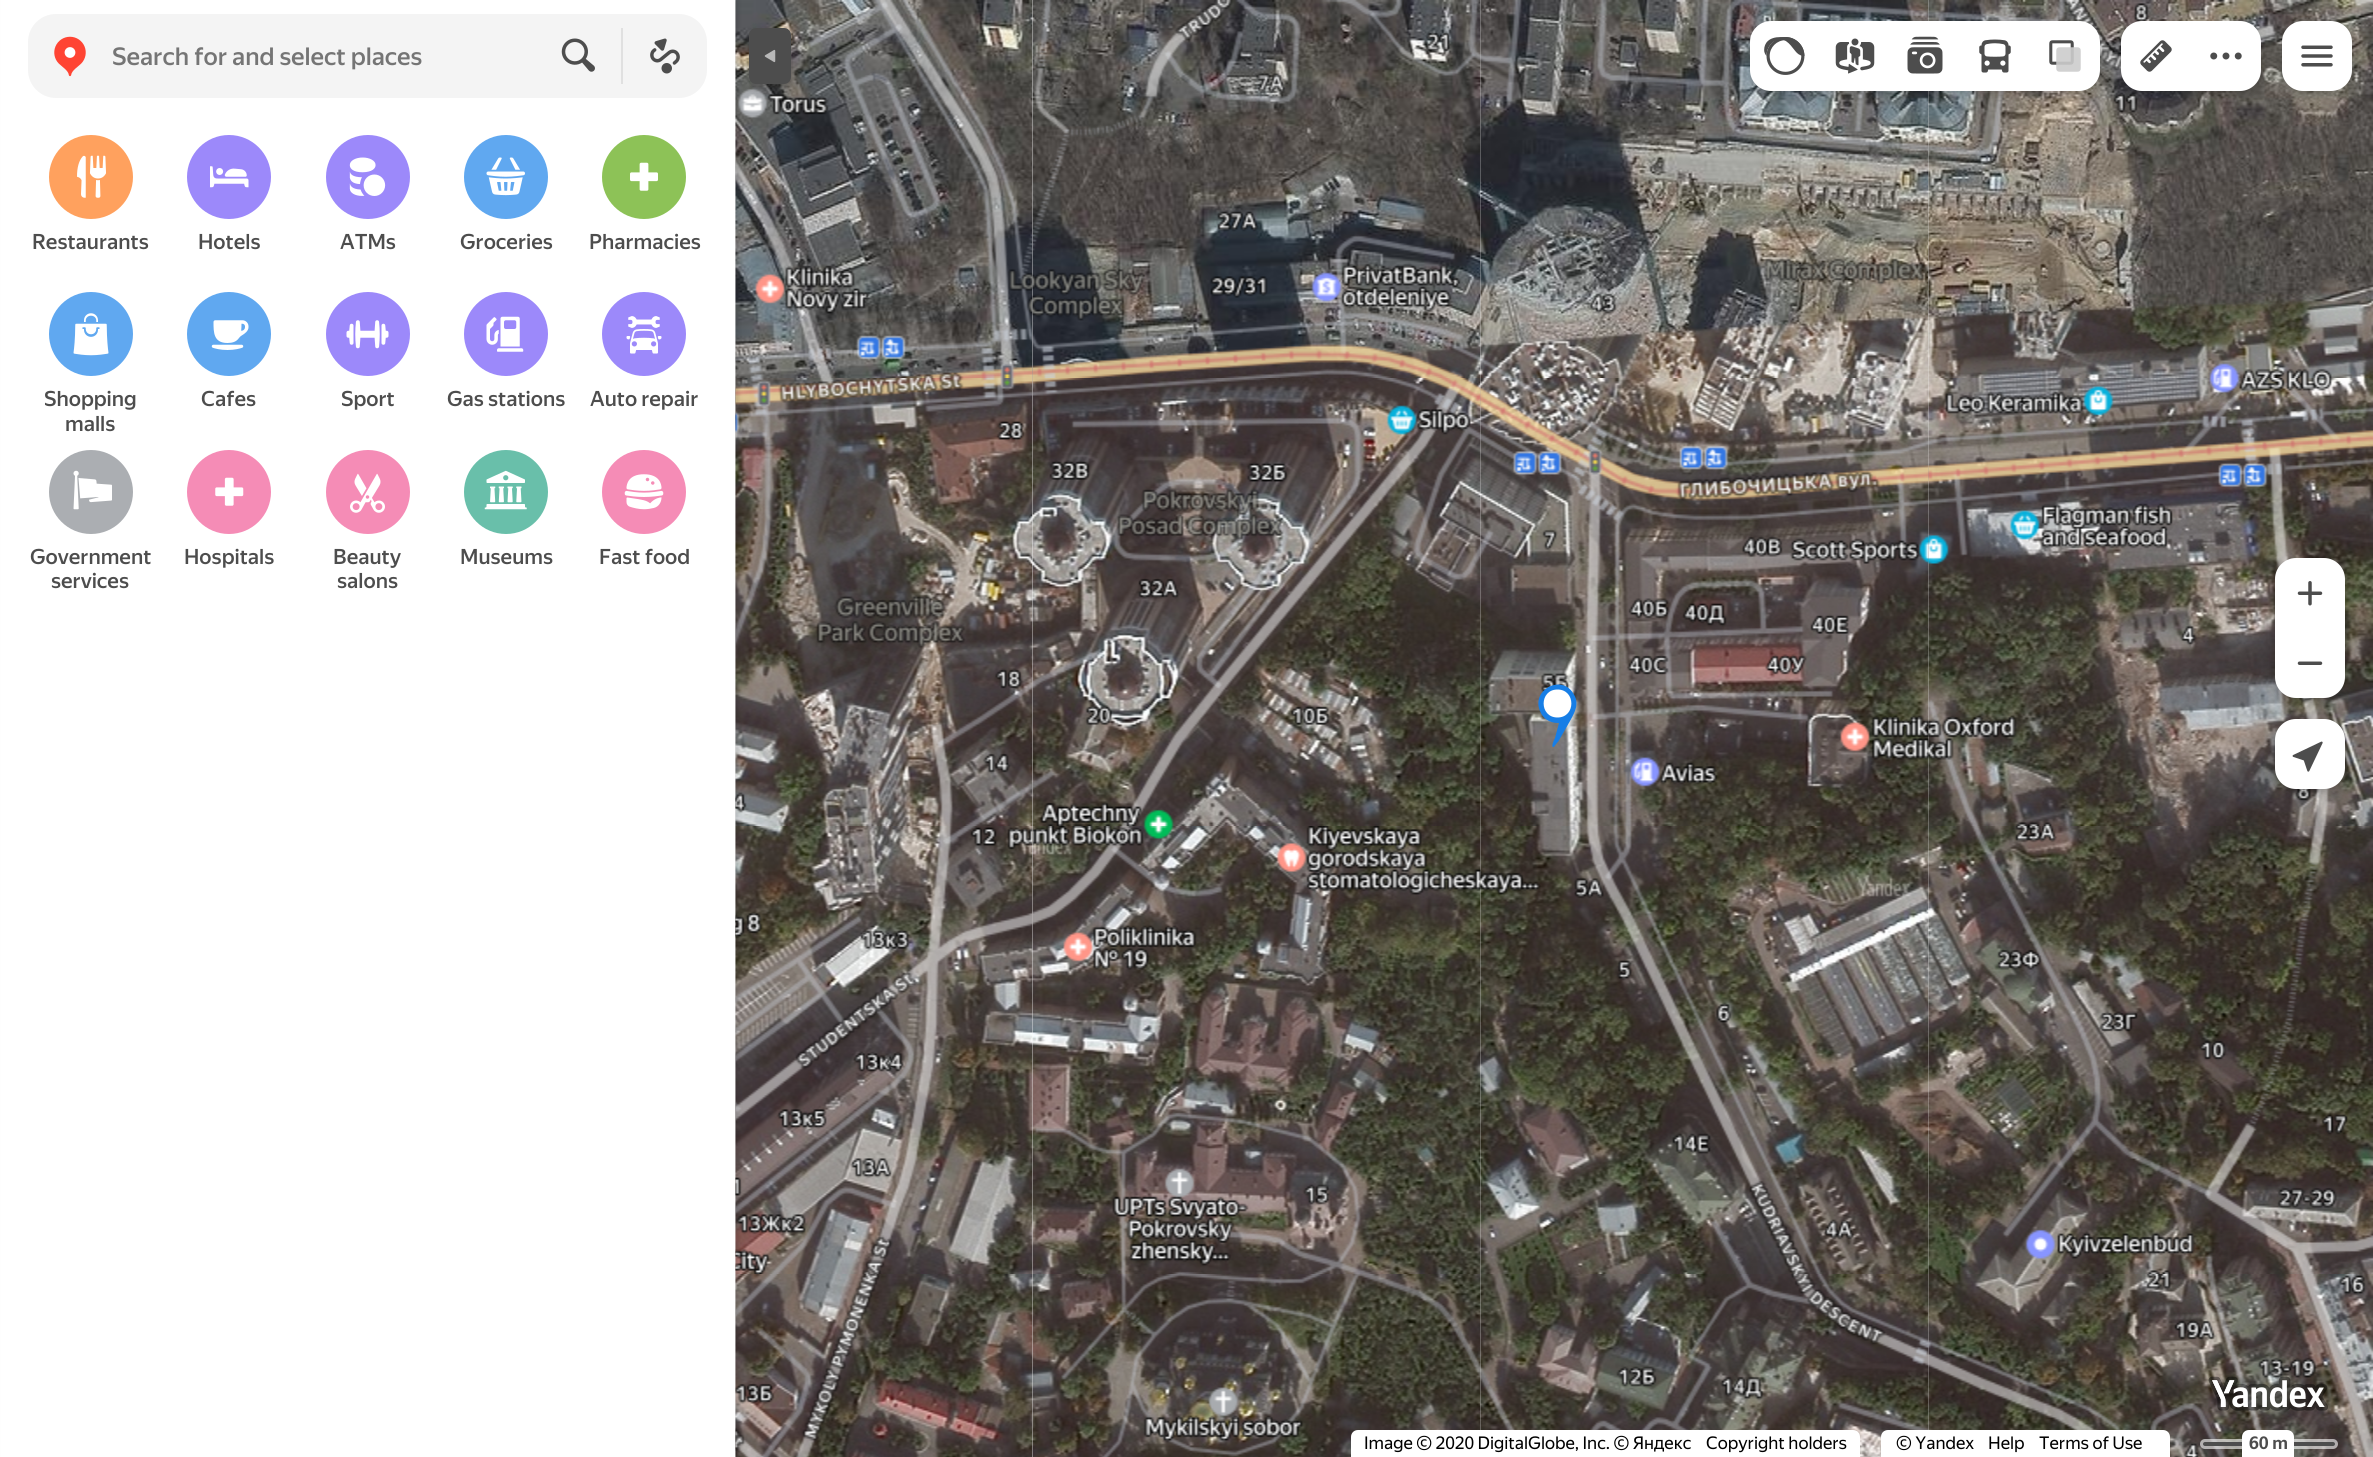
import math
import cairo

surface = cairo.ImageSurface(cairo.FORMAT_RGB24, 2373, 1457)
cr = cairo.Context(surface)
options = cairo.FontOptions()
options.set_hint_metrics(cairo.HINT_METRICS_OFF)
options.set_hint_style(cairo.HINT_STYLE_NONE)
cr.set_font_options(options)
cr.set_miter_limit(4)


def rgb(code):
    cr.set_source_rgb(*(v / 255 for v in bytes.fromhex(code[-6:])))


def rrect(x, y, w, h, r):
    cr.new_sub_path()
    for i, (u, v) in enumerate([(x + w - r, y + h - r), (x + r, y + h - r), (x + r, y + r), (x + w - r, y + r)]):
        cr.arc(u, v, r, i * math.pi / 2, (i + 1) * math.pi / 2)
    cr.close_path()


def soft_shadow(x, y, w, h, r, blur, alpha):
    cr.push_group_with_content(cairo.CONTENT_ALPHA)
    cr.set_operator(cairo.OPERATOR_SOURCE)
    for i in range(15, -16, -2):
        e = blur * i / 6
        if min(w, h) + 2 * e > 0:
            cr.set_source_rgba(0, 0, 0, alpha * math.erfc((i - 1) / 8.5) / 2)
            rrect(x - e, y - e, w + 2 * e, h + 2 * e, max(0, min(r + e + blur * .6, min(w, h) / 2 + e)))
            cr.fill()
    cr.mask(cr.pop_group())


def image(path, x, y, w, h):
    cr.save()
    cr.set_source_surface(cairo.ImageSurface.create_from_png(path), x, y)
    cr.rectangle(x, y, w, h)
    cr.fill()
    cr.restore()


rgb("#ffffff")
cr.paint()
image("img/1.png", 735, 0, 1194, 1457)
image("img/3.png", 1032, 0, 449, 378)
image("img/2.png", 735, 0, 298, 378)
image("img/4.png", 1480, 0, 449, 378)
image("img/5.png", 1928, 0, 445, 378)
image("img/7.png", 1032, 378, 449, 448)
image("img/6.png", 735, 378, 298, 448)
image("img/8.png", 1480, 378, 449, 448)
image("img/9.png", 1928, 378, 445, 448)
image("img/11.png", 1032, 826, 449, 448)
image("img/10.png", 735, 826, 298, 448)
image("img/12.png", 1480, 826, 449, 448)
image("img/13.png", 1928, 826, 445, 448)
image("img/15.png", 1032, 1274, 449, 183)
image("img/14.png", 735, 1274, 298, 183)
image("img/16.png", 1480, 1274, 449, 183)
image("img/17.png", 1928, 1274, 445, 183)
image("img/19.png", 1032, 0, 449, 378)
image("img/18.png", 735, 0, 298, 378)
image("img/20.png", 1480, 0, 449, 378)
image("img/21.png", 1928, 0, 445, 378)
image("img/23.png", 1032, 378, 449, 448)
image("img/22.png", 735, 378, 298, 448)
image("img/24.png", 1480, 378, 449, 448)
image("img/25.png", 1928, 378, 445, 448)
image("img/27.png", 1032, 826, 449, 448)
image("img/26.png", 735, 826, 298, 448)
image("img/28.png", 1480, 826, 375, 448)
image("img/29.png", 1971, 826, 402, 448)
image("img/30.png", 735, 1274, 145, 183)
image("img/31.png", 1061, 1274, 420, 183)
image("img/32.png", 1480, 1274, 449, 156)
image("img/33.png", 1928, 1274, 445, 183)
rgb("#177ee6")
cr.new_path()
cr.move_to(1559, 723)
cr.line_to(1558, 723)
cr.curve_to(1550, 723, 1543, 719, 1540, 711)
cr.curve_to(1531, 690, 1561, 674, 1573, 693)
cr.curve_to(1580, 703, 1575, 712, 1570, 721)
cr.line_to(1558, 742)
cr.curve_to(1557, 742, 1554, 748, 1553, 747)
cr.curve_to(1551, 746, 1554, 740, 1555, 738)
cr.close_path()
cr.fill()
rgb("#ffffff")
cr.new_path()
cr.move_to(1557.5, 717.5)
cr.curve_to(1576, 717.5, 1576, 689.5, 1557.5, 689.5)
cr.curve_to(1539, 689.5, 1539, 717.5, 1557.5, 717.5)
cr.close_path()
cr.fill()
rgb("#000000")
soft_shadow(4, 0, 735, 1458, 0, 2, 0.1)
soft_shadow(749, 32, 42, 56, 7, 5, 0.2)
rgb("#ffffff")
cr.rectangle(1, 0, 734, 1457)
cr.fill()
rgb("#f4f4f4")
rrect(28, 14, 679, 84, 28)
cr.fill()
image("img/34.png", 54, 36, 32, 41)
image("img/35.png", 561, 38, 34, 34)
rgb("#e0e0e0")
cr.rectangle(621, 28, 2, 56)
cr.fill()
image("img/36.png", 650, 38, 30, 36)
rgb("#000000")
soft_shadow(1750, 25, 350, 70, 21, 5, 0.2)
rgb("#ffffff")
cr.new_path()
cr.move_to(1771, 21)
cr.line_to(1820, 21)
cr.line_to(1820, 91)
cr.line_to(1771, 91)
cr.curve_to(1759.5, 91, 1750, 81.5, 1750, 70)
cr.line_to(1750, 42)
cr.curve_to(1750, 30.5, 1759.5, 21, 1771, 21)
cr.close_path()
cr.fill()
image("img/37.png", 1764, 37, 41, 38)
cr.rectangle(1820, 21, 210, 70)
cr.fill()
image("img/38.png", 1835, 38, 40, 36)
cr.new_path()
cr.move_to(2030, 21)
cr.line_to(2079, 21)
cr.curve_to(2090.5, 21, 2100, 30.5, 2100, 42)
cr.line_to(2100, 70)
cr.curve_to(2100, 81.5, 2090.5, 91, 2079, 91)
cr.line_to(2030, 91)
cr.close_path()
cr.fill()
image("img/39.png", 2049, 40, 32, 32)
image("img/40.png", 1907, 36, 36, 38)
image("img/41.png", 1979, 39, 32, 34)
rgb("#000000")
soft_shadow(2121, 25, 140, 70, 21, 5, 0.2)
rgb("#ffffff")
cr.new_path()
cr.move_to(2142, 21)
cr.line_to(2191, 21)
cr.line_to(2191, 91)
cr.line_to(2142, 91)
cr.curve_to(2130.5, 91, 2121, 81.5, 2121, 70)
cr.line_to(2121, 42)
cr.curve_to(2121, 30.5, 2130.5, 21, 2142, 21)
cr.close_path()
cr.fill()
image("img/42.png", 2140, 40, 32, 32)
cr.new_path()
cr.move_to(2191, 21)
cr.line_to(2240, 21)
cr.curve_to(2251.5, 21, 2261, 30.5, 2261, 42)
cr.line_to(2261, 70)
cr.curve_to(2261, 81.5, 2251.5, 91, 2240, 91)
cr.line_to(2191, 91)
cr.close_path()
cr.fill()
image("img/43.png", 2210, 52, 32, 8)
rgb("#000000")
soft_shadow(2282, 25, 70, 70, 21, 5, 0.2)
rgb("#ffffff")
rrect(2282, 21, 70, 70, 21)
cr.fill()
image("img/44.png", 2301, 45, 32, 22)
rgb("#000000")
soft_shadow(2275, 562, 70, 140, 21, 5, 0.2)
rgb("#ffffff")
cr.new_path()
cr.move_to(2296, 558)
cr.line_to(2324, 558)
cr.curve_to(2335.5, 558, 2345, 567.5, 2345, 579)
cr.line_to(2345, 628)
cr.line_to(2275, 628)
cr.line_to(2275, 579)
cr.curve_to(2275, 567.5, 2284.5, 558, 2296, 558)
cr.close_path()
cr.fill()
image("img/45.png", 2297, 581, 26, 25)
cr.new_path()
cr.move_to(2275, 628)
cr.line_to(2345, 628)
cr.line_to(2345, 677)
cr.curve_to(2345, 688.5, 2335.5, 698, 2324, 698)
cr.line_to(2296, 698)
cr.curve_to(2284.5, 698, 2275, 688.5, 2275, 677)
cr.close_path()
cr.fill()
image("img/46.png", 2297, 661, 26, 4)
rgb("#000000")
soft_shadow(2275, 723, 70, 70, 21, 5, 0.2)
rgb("#ffffff")
rrect(2275, 719, 70, 70, 21)
cr.fill()
image("img/47.png", 2292, 741, 31, 31)
rgb("#4d4d4d")
rrect(749, 28, 42, 56, 7)
cr.fill()
image("img/48.png", 764, 49, 12, 14)
rgb("#ffa15e")
cr.arc(91, 177, 42, 0, 2 * math.pi)
cr.fill()
image("img/49.png", 77, 155, 29, 43)
rgb("#9c89fa")
cr.arc(229, 177, 42, 0, 2 * math.pi)
cr.fill()
image("img/50.png", 210, 166, 39, 22)
cr.arc(368, 177, 42, 0, 2 * math.pi)
cr.fill()
image("img/51.png", 349, 157, 37, 39)
rgb("#60a8f0")
cr.arc(506, 177, 42, 0, 2 * math.pi)
cr.fill()
image("img/52.png", 486, 157, 39, 39)
rgb("#8dc257")
cr.arc(644, 177, 42, 0, 2 * math.pi)
cr.fill()
image("img/53.png", 630, 162, 28, 29)
rgb("#60a8f0")
cr.arc(91, 334, 42, 0, 2 * math.pi)
cr.fill()
image("img/54.png", 73, 313, 36, 43)
cr.arc(229, 334, 42, 0, 2 * math.pi)
cr.fill()
image("img/55.png", 211, 320, 38, 30)
rgb("#9c89fa")
cr.arc(368, 334, 42, 0, 2 * math.pi)
cr.fill()
image("img/56.png", 346, 320, 43, 29)
cr.arc(506, 334, 42, 0, 2 * math.pi)
cr.fill()
image("img/57.png", 486, 316, 38, 36)
cr.arc(644, 334, 42, 0, 2 * math.pi)
cr.fill()
image("img/58.png", 626, 316, 36, 38)
rgb("#abaeb2")
cr.arc(91, 492, 42, 0, 2 * math.pi)
cr.fill()
image("img/59.png", 73, 470, 39, 40)
rgb("#f58cb6")
cr.arc(229, 492, 42, 0, 2 * math.pi)
cr.fill()
image("img/60.png", 215, 477, 29, 29)
cr.arc(368, 492, 42, 0, 2 * math.pi)
cr.fill()
image("img/61.png", 350, 473, 35, 40)
rgb("#69bfaa")
cr.arc(506, 492, 42, 0, 2 * math.pi)
cr.fill()
image("img/62.png", 484, 470, 43, 40)
rgb("#f58cb6")
cr.arc(644, 492, 42, 0, 2 * math.pi)
cr.fill()
image("img/63.png", 624, 474, 40, 36)
image("img/64.png", 2208, 1376, 120, 35)
rgb("#ffffff")
cr.new_path()
cr.move_to(1358, 1430)
cr.line_to(1853, 1430)
cr.curve_to(1857, 1430, 1860, 1433, 1860, 1437)
cr.line_to(1860, 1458)
cr.line_to(1351, 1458)
cr.line_to(1351, 1437)
cr.curve_to(1351, 1433, 1354, 1430, 1358, 1430)
cr.close_path()
cr.fill()
cr.new_path()
cr.move_to(1888, 1430)
cr.line_to(2163, 1430)
cr.curve_to(2167, 1430, 2170, 1433, 2170, 1437)
cr.line_to(2170, 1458)
cr.line_to(1881, 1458)
cr.line_to(1881, 1437)
cr.curve_to(1881, 1433, 1884, 1430, 1888, 1430)
cr.close_path()
cr.fill()
cr.set_source_rgba(1, 1, 1, 0.6)
rrect(2200, 1439, 138, 10, 5)
cr.fill()
rgb("#4d4d4d")
rrect(2203, 1442, 132, 4, 2)
cr.fill()
rgb("#ffffff")
cr.new_path()
cr.move_to(2249, 1430)
cr.line_to(2287, 1430)
cr.curve_to(2291, 1430, 2294, 1433, 2294, 1437)
cr.line_to(2294, 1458)
cr.line_to(2242, 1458)
cr.line_to(2242, 1437)
cr.curve_to(2242, 1433, 2245, 1430, 2249, 1430)
cr.close_path()
cr.fill()
cr.select_font_face("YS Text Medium")
cr.set_font_size(24.5)
rgb("#757575")
cr.move_to(112, 65)
cr.show_text("Search for and select places")
cr.set_font_size(21)
rgb("#4d4d4d")
for x, y, s in [
    (32, 249, "Restaurants"),
    (198, 249, "Hotels"),
    (340, 249, "ATMs"),
    (460, 249, "Groceries"),
    (589, 249, "Pharmacies"),
    (44, 406, "Shopping"),
    (65, 431, "malls"),
    (201, 406, "Cafes"),
    (341, 406, "Sport"),
    (447, 406, "Gas stations"),
    (590, 406, "Auto repair"),
    (30, 564, "Government"),
    (51, 588, "services"),
    (184, 564, "Hospitals"),
    (333, 564, "Beauty"),
    (337, 588, "salons"),
    (460, 564, "Museums"),
    (599, 564, "Fast food"),
]:
    cr.move_to(x, y)
    cr.show_text(s)
cr.select_font_face("YS Text")
cr.set_font_size(17.5)
rgb("#000000")
for x, y, s in [
    (1364, 1449, "Image © 2020 DigitalGlobe, Inc. © Яндекс"),
    (1706, 1449, "Copyright holders"),
    (1896, 1449, "© Yandex"),
    (1988, 1449, "Help"),
    (2039, 1449, "Terms of Use"),
]:
    cr.move_to(x, y)
    cr.show_text(s)
cr.select_font_face("YS Text", cairo.FONT_SLANT_NORMAL, cairo.FONT_WEIGHT_BOLD)
rgb("#4d4d4d")
cr.move_to(2249, 1449)
cr.show_text("60 m")
surface.write_to_png("page.png")
